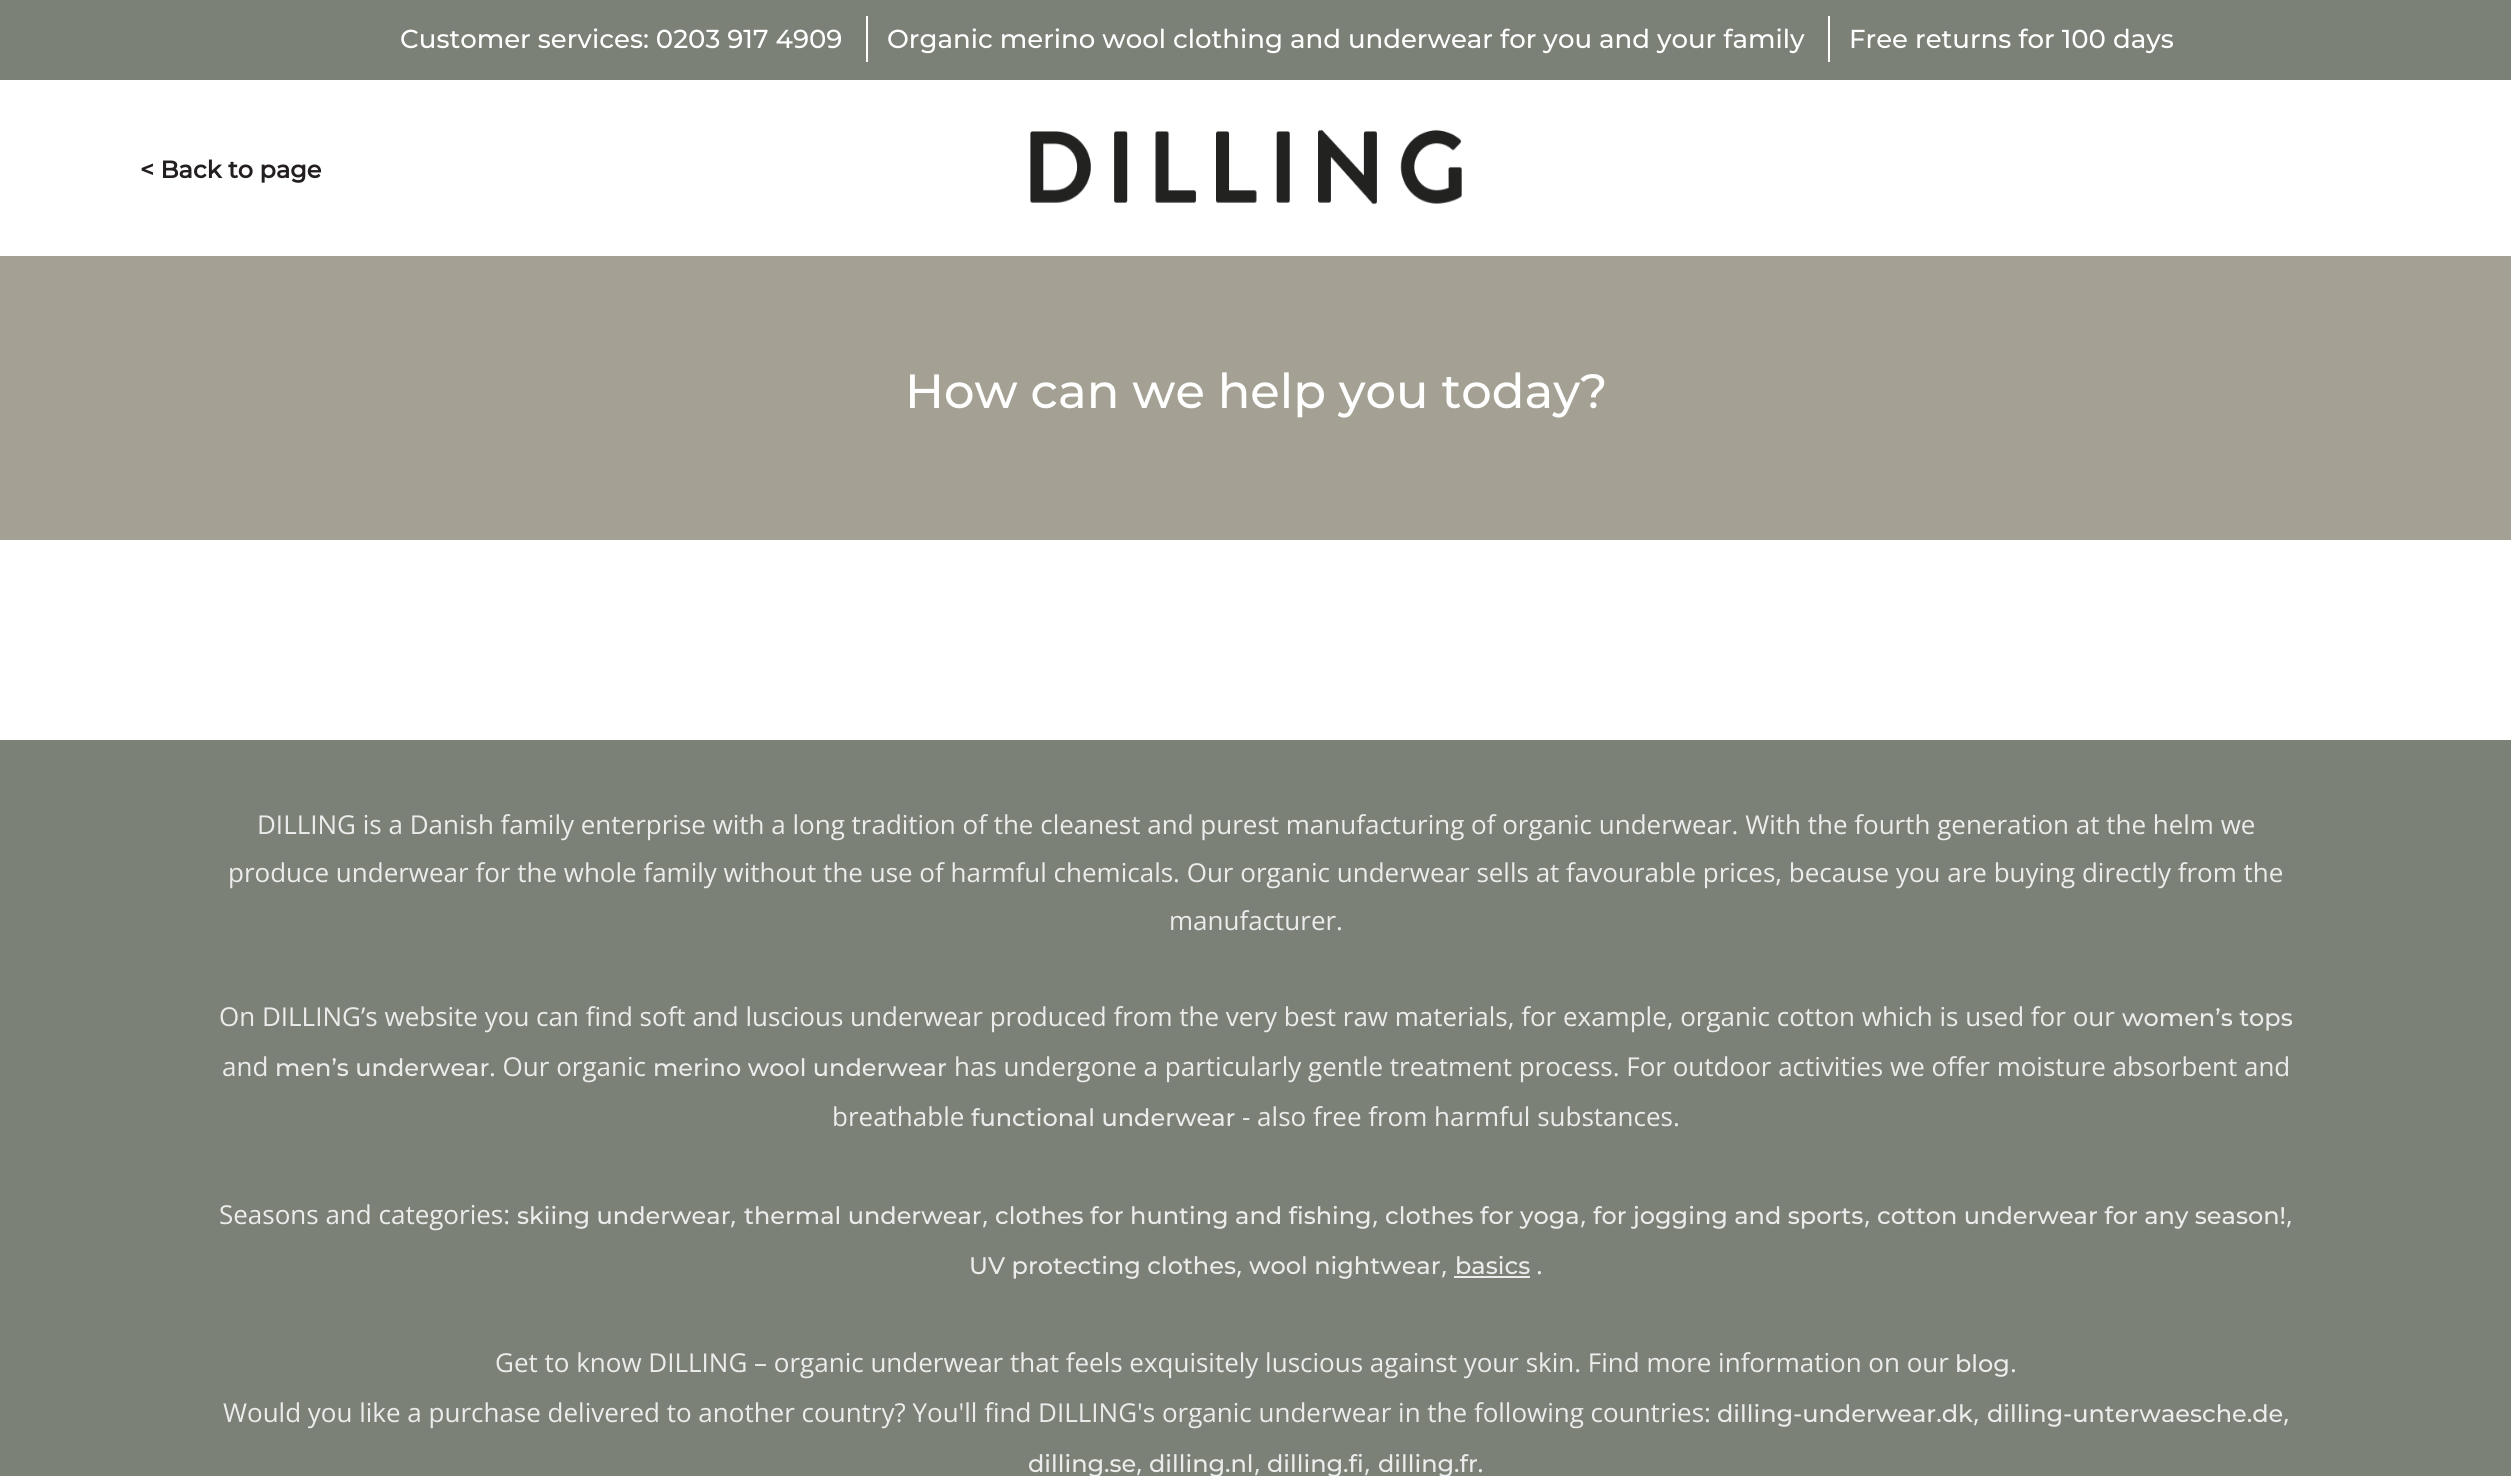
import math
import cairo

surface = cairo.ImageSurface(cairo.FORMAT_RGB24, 2511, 1476)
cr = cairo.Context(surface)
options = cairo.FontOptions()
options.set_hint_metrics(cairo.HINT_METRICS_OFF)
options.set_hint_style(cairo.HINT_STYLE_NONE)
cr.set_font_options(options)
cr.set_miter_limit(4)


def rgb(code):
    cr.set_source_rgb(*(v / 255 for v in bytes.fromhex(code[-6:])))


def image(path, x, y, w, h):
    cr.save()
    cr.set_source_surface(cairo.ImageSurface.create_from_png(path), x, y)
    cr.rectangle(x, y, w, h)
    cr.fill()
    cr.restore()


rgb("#ffffff")
cr.paint()
for x, y, w, h, color in [
    (0, 0, 2511, 80, "#7b8176"),
    (866, 16, 2, 46, "#ffffff"),
    (1828, 16, 2, 46, "#ffffff"),
]:
    rgb(color)
    cr.rectangle(x, y, w, h)
    cr.fill()
image("img/1.png", 1030, 129, 432, 76)
for x, y, w, h, color in [
    (0, 256, 2511, 284, "#a4a194"),
    (0, 740, 2511, 736, "#7b8176"),
    (1454, 1276, 76, 2, "#ececec"),
]:
    rgb(color)
    cr.rectangle(x, y, w, h)
    cr.fill()
cr.select_font_face("Montserrat Medium")
cr.set_font_size(26)
rgb("#ffffff")
for x, y, s in [
    (400, 48, "Customer services: 0203 917 4909"),
    (887, 48, "Organic merino wool clothing and underwear for you and your family"),
    (1849, 48, "Free returns for 100 days"),
]:
    cr.move_to(x, y)
    cr.show_text(s)
cr.select_font_face("Montserrat", cairo.FONT_SLANT_NORMAL, cairo.FONT_WEIGHT_BOLD)
cr.set_font_size(24)
rgb("#231f20")
cr.move_to(140, 178)
cr.show_text("< Back to page")
cr.select_font_face("Montserrat Medium")
cr.set_font_size(48)
rgb("#ffffff")
cr.move_to(905, 408)
cr.show_text("How can we help you today?")
cr.select_font_face("Open Sans")
cr.set_font_size(26)
rgb("#ececec")
for x, y, s in [
    (257, 834, "DILLING is a Danish family enterprise with a long tradition of the cleanest and purest manufacturing of organic underwear. With the fourth generation at the helm we"),
    (228, 882, "produce underwear for the whole family without the use of harmful chemicals. Our organic underwear sells at favourable prices, because you are buying directly from the"),
    (1169, 930, "manufacturer."),
    (219, 1026, "On DILLING’s website you can find soft and luscious underwear produced from the very best raw materials, for example, organic cotton which is used for our"),
]:
    cr.move_to(x, y)
    cr.show_text(s)
cr.select_font_face("Montserrat Medium")
cr.set_font_size(24)
cr.move_to(2122, 1026)
cr.show_text("women’s tops")
cr.select_font_face("Open Sans")
cr.set_font_size(26)
cr.move_to(222, 1076)
cr.show_text("and")
cr.select_font_face("Montserrat Medium")
cr.set_font_size(24)
cr.move_to(275, 1076)
cr.show_text("men’s underwear")
cr.select_font_face("Open Sans")
cr.set_font_size(26)
cr.move_to(489, 1076)
cr.show_text(". Our organic")
cr.select_font_face("Montserrat Medium")
cr.set_font_size(24)
cr.move_to(653, 1076)
cr.show_text("merino wool underwear")
cr.select_font_face("Open Sans")
cr.set_font_size(26)
cr.move_to(954, 1076)
cr.show_text("has undergone a particularly gentle treatment process. For outdoor activities we offer moisture absorbent and")
cr.move_to(832, 1126)
cr.show_text("breathable")
cr.select_font_face("Montserrat Medium")
cr.set_font_size(24)
cr.move_to(971, 1126)
cr.show_text("functional underwear")
cr.select_font_face("Open Sans")
cr.set_font_size(26)
cr.move_to(1242, 1126)
cr.show_text("- also free from harmful substances.")
cr.move_to(219, 1224)
cr.show_text("Seasons and categories:")
cr.select_font_face("Montserrat Medium")
cr.set_font_size(24)
cr.move_to(517, 1224)
cr.show_text("skiing underwear")
cr.select_font_face("Open Sans")
cr.set_font_size(26)
cr.move_to(730, 1224)
cr.show_text(",")
cr.select_font_face("Montserrat Medium")
cr.set_font_size(24)
cr.move_to(744, 1224)
cr.show_text("thermal underwear")
cr.select_font_face("Open Sans")
cr.set_font_size(26)
cr.move_to(982, 1224)
cr.show_text(",")
cr.select_font_face("Montserrat Medium")
cr.set_font_size(24)
cr.move_to(995, 1224)
cr.show_text("clothes for hunting and fishing")
cr.select_font_face("Open Sans")
cr.set_font_size(26)
cr.move_to(1372, 1224)
cr.show_text(",")
cr.select_font_face("Montserrat Medium")
cr.set_font_size(24)
cr.move_to(1385, 1224)
cr.show_text("clothes for yoga")
cr.select_font_face("Open Sans")
cr.set_font_size(26)
cr.move_to(1580, 1224)
cr.show_text(",")
cr.select_font_face("Montserrat Medium")
cr.set_font_size(24)
cr.move_to(1593, 1224)
cr.show_text("for jogging and sports")
cr.select_font_face("Open Sans")
cr.set_font_size(26)
cr.move_to(1864, 1224)
cr.show_text(",")
cr.select_font_face("Montserrat Medium")
cr.set_font_size(24)
cr.move_to(1877, 1224)
cr.show_text("cotton underwear for any season!")
cr.select_font_face("Open Sans")
cr.set_font_size(26)
cr.move_to(2286, 1224)
cr.show_text(",")
cr.select_font_face("Montserrat Medium")
cr.set_font_size(24)
cr.move_to(969, 1274)
cr.show_text("UV protecting clothes")
cr.select_font_face("Open Sans")
cr.set_font_size(26)
cr.move_to(1236, 1274)
cr.show_text(",")
cr.select_font_face("Montserrat Medium")
cr.set_font_size(24)
cr.move_to(1249, 1274)
cr.show_text("wool nightwear")
cr.select_font_face("Open Sans")
cr.set_font_size(26)
cr.move_to(1441, 1274)
cr.show_text(",")
cr.select_font_face("Montserrat Medium")
cr.set_font_size(24)
cr.move_to(1455, 1274)
cr.show_text("basics")
cr.select_font_face("Open Sans")
cr.set_font_size(26)
cr.move_to(1536, 1274)
cr.show_text(".")
cr.move_to(495, 1372)
cr.show_text("Get to know DILLING – organic underwear that feels exquisitely luscious against your skin. Find more information on our")
cr.select_font_face("Montserrat Medium")
cr.set_font_size(24)
cr.move_to(1955, 1372)
cr.show_text("blog")
cr.select_font_face("Open Sans")
cr.set_font_size(26)
cr.move_to(2010, 1372)
cr.show_text(".")
cr.move_to(223, 1422)
cr.show_text("Would you like a purchase delivered to another country? You'll find DILLING's organic underwear in the following countries:")
cr.select_font_face("Montserrat Medium")
cr.set_font_size(24)
cr.move_to(1717, 1422)
cr.show_text("dilling-underwear.dk")
cr.select_font_face("Open Sans")
cr.set_font_size(26)
cr.move_to(1973, 1422)
cr.show_text(",")
cr.select_font_face("Montserrat Medium")
cr.set_font_size(24)
cr.move_to(1987, 1422)
cr.show_text("dilling-unterwaesche.de")
cr.select_font_face("Open Sans")
cr.set_font_size(26)
cr.move_to(2283, 1422)
cr.show_text(",")
cr.select_font_face("Montserrat Medium")
cr.set_font_size(24)
cr.move_to(1028, 1472)
cr.show_text("dilling.se")
cr.select_font_face("Open Sans")
cr.set_font_size(26)
cr.move_to(1136, 1472)
cr.show_text(",")
cr.select_font_face("Montserrat Medium")
cr.set_font_size(24)
cr.move_to(1149, 1472)
cr.show_text("dilling.nl")
cr.select_font_face("Open Sans")
cr.set_font_size(26)
cr.move_to(1254, 1472)
cr.show_text(",")
cr.select_font_face("Montserrat Medium")
cr.set_font_size(24)
cr.move_to(1267, 1472)
cr.show_text("dilling.fi")
cr.select_font_face("Open Sans")
cr.set_font_size(26)
cr.move_to(1364, 1472)
cr.show_text(",")
cr.select_font_face("Montserrat Medium")
cr.set_font_size(24)
cr.move_to(1378, 1472)
cr.show_text("dilling.fr")
cr.select_font_face("Open Sans")
cr.set_font_size(26)
cr.move_to(1477, 1472)
cr.show_text(".")
surface.write_to_png("page.png")
